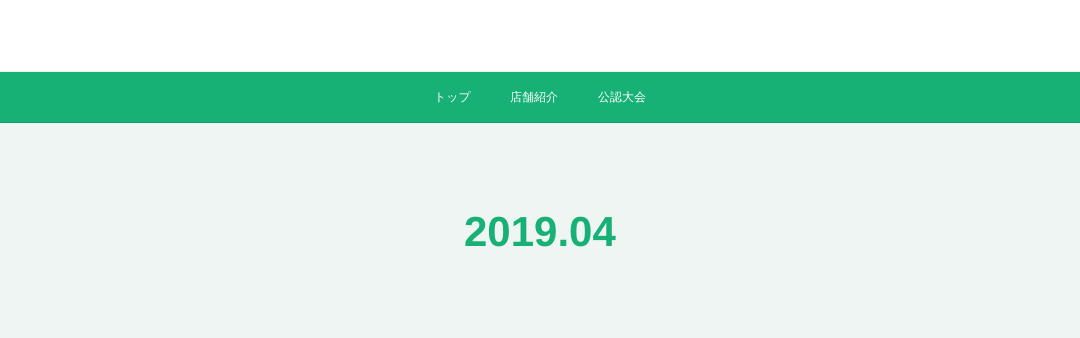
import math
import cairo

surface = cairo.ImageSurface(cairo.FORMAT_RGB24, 1080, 338)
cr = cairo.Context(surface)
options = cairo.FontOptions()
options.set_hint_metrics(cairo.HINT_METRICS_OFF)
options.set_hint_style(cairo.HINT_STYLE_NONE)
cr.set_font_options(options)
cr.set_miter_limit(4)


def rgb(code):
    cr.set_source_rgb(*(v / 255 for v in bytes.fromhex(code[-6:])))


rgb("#eff5f2")
cr.paint()
for x, y, w, h, color in [
    (0, 0, 1080, 71, "#ffffff"),
    (0, 71, 1080, 1, "#eeeeee"),
    (0, 72, 1080, 50, "#17b075"),
    (0, 122, 1080, 1, "#159e69"),
]:
    rgb(color)
    cr.rectangle(x, y, w, h)
    cr.fill()
cr.select_font_face("WenQuanYi Zen Hei Medium")
cr.set_font_size(12)
rgb("#ffffff")
for x, y, s in [
    (434, 101, "トップ"),
    (510, 101, "店舗紹介"),
    (598, 101, "公認大会"),
]:
    cr.move_to(x, y)
    cr.show_text(s)
cr.select_font_face("Liberation Sans", cairo.FONT_SLANT_NORMAL, cairo.FONT_WEIGHT_BOLD)
cr.set_font_size(42)
rgb("#17b075")
cr.move_to(464, 246)
cr.show_text("2019.04")
surface.write_to_png("page.png")
